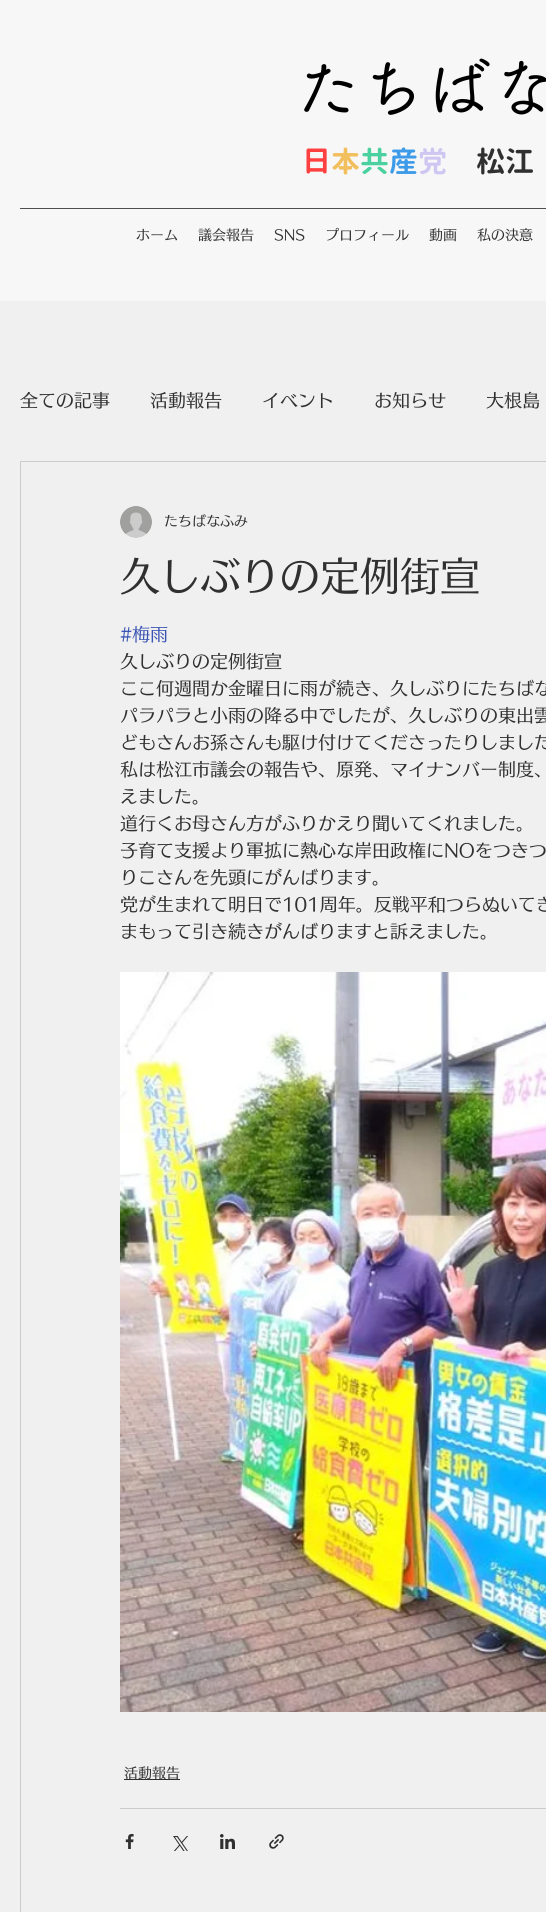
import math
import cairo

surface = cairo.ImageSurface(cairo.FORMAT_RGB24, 546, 1912)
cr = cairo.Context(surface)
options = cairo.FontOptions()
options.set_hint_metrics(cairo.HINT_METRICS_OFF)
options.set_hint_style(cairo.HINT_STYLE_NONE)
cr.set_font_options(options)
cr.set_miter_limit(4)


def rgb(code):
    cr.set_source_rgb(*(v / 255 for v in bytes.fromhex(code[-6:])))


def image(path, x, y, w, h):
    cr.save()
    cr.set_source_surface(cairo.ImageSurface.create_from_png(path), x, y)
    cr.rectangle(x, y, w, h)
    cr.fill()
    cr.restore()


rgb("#f0f0f0")
cr.paint()
rgb("#f7f7f7")
cr.rectangle(0, 0, 546, 301)
cr.fill()
rgb("#4e4e4e")
cr.rectangle(20, 208, 526, 1)
cr.fill()
cr.rectangle(20.5, 461.5, 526, 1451)
rgb("#cccccc")
cr.set_line_width(1)
cr.stroke()
image("img/1.png", 120, 506, 32, 32)
image("img/2.png", 120, 972, 426, 740)
rgb("#303030")
cr.rectangle(124, 1779, 56, 1)
cr.fill()
rgb("#cacaca")
cr.rectangle(120, 1808, 426, 1)
cr.fill()
image("img/3.png", 125, 1834, 9, 15)
image("img/4.png", 173, 1836, 15, 15)
image("img/5.png", 220, 1834, 15, 15)
image("img/6.png", 269, 1834, 15, 15)
cr.select_font_face("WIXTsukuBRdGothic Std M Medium")
cr.set_font_size(65)
rgb("#000000")
cr.move_to(295, 112)
cr.show_text("たちばな")
cr.select_font_face("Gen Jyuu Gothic", cairo.FONT_SLANT_NORMAL, cairo.FONT_WEIGHT_BOLD)
cr.set_font_size(29)
rgb("#ff4040")
cr.move_to(302, 172)
cr.show_text("日")
rgb("#f2bf5e")
cr.move_to(331, 172)
cr.show_text("本")
rgb("#4bd1a0")
cr.move_to(360, 172)
cr.show_text("共")
rgb("#3d9be9")
cr.move_to(389, 172)
cr.show_text("産")
rgb("#cfc7f2")
cr.move_to(418, 172)
cr.show_text("党")
rgb("#303030")
cr.move_to(476, 172)
cr.show_text("松江")
cr.select_font_face("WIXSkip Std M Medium")
cr.set_font_size(14)
for x, y, s in [
    (136, 240, "ホーム"),
    (198, 240, "議会報告"),
    (274, 240, "SNS"),
    (325, 240, "プロフィール"),
    (429, 240, "動画"),
    (477, 240, "私の決意"),
]:
    cr.move_to(x, y)
    cr.show_text(s)
cr.set_font_size(18)
for x, y, s in [
    (20, 407, "全ての記事"),
    (150, 407, "活動報告"),
    (262, 407, "イベント"),
    (374, 407, "お知らせ"),
    (486, 407, "大根島"),
]:
    cr.move_to(x, y)
    cr.show_text(s)
cr.set_font_size(14)
cr.move_to(164, 526)
cr.show_text("たちばなふみ")
cr.set_font_size(40)
cr.move_to(120, 591)
cr.show_text("久しぶりの定例街宣")
cr.set_font_size(18)
rgb("#3a54b4")
cr.move_to(120, 641)
cr.show_text("#梅雨")
rgb("#303030")
for x, y, s in [
    (120, 668, "久しぶりの定例街宣"),
    (120, 695, "ここ何週間か金曜日に雨が続き、久しぶりにたちばな"),
    (120, 722, "パラパラと小雨の降る中でしたが、久しぶりの東出雲"),
    (120, 749, "どもさんお孫さんも駆け付けてくださったりしました"),
    (120, 776, "私は松江市議会の報告や、原発、マイナンバー制度、"),
    (120, 803, "えました。"),
    (120, 830, "道行くお母さん方がふりかえり聞いてくれました。"),
    (120, 857, "子育て支援より軍拡に熱心な岸田政権にNOをつきつ"),
    (120, 884, "りこさんを先頭にがんばります。"),
    (120, 911, "党が生まれて明日で101周年。反戦平和つらぬいてき"),
    (120, 938, "まもって引き続きがんばりますと訴えました。"),
]:
    cr.move_to(x, y)
    cr.show_text(s)
cr.set_font_size(14)
cr.move_to(124, 1778)
cr.show_text("活動報告")
surface.write_to_png("page.png")
